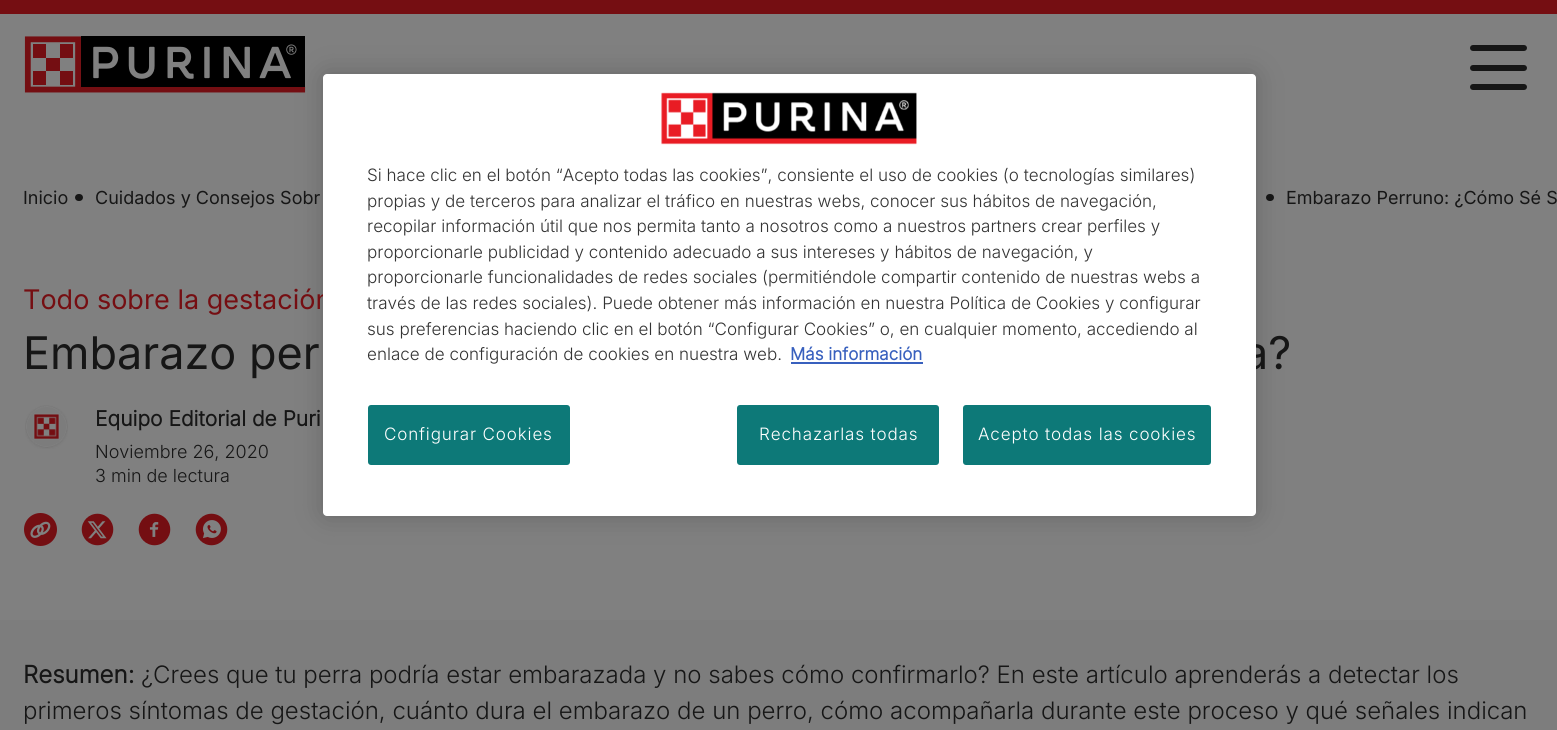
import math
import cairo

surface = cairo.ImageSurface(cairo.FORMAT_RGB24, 1557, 730)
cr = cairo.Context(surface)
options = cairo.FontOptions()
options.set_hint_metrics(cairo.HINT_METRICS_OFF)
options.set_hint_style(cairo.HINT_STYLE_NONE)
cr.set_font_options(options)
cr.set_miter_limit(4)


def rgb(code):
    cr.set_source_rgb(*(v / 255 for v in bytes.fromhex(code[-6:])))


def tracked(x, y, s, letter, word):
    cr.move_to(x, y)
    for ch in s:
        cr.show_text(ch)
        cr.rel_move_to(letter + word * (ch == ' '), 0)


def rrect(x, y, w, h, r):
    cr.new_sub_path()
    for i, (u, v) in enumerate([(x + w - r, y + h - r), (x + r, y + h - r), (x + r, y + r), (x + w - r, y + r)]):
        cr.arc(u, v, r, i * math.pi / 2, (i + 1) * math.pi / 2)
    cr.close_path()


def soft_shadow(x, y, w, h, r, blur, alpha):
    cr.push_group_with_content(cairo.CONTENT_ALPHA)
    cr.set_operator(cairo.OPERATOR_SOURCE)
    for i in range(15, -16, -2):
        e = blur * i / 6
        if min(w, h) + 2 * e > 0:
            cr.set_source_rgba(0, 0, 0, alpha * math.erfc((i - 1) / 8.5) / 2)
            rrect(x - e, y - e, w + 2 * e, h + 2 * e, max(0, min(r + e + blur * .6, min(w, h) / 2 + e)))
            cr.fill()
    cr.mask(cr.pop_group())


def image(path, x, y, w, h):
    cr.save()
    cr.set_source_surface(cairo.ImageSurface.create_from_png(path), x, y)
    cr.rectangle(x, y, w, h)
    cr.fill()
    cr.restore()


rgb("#808080")
cr.paint()
image("img/2.png", 24, 36, 282, 57)
rgb("#161616")
rrect(1266, 194, 8, 7, 3.5)
cr.fill()
rgb("#000000")
soft_shadow(323, 74, 933, 442, 4, 13.5, 0.2)
rgb("#750e12")
cr.rectangle(0, 0, 1557, 14)
cr.fill()
rgb("#161616")
rrect(1470, 45, 57, 6, 3)
cr.fill()
rrect(1470, 65, 57, 6, 3)
cr.fill()
rrect(1470, 84, 57, 6, 3)
cr.fill()
rrect(75, 194, 8, 7, 3.5)
cr.fill()
image("img/3.png", 25, 405, 43, 44)
image("img/4.png", 24, 513, 33, 33)
image("img/5.png", 81, 513, 33, 33)
image("img/6.png", 138, 513, 33, 33)
image("img/7.png", 195, 513, 33, 33)
rgb("#7d7d7d")
cr.rectangle(0, 620, 1557, 110)
cr.fill()
cr.select_font_face("Inter")
cr.set_font_size(18)
rgb("#161616")
for x, y, s in [
    (23, 204, "Inicio"),
    (95, 204, "Cuidados y Consejos Sobr"),
    (1286, 204, "Embarazo Perruno: ¿Cómo Sé S"),
]:
    cr.move_to(x, y)
    cr.show_text(s)
cr.set_font_size(27)
rgb("#750e12")
cr.move_to(23, 309)
cr.show_text("Todo sobre la gestación")
cr.set_font_size(45)
rgb("#161616")
cr.move_to(23, 369)
cr.show_text("Embarazo per")
cr.move_to(1243, 369)
cr.show_text("a?")
rgb("#ffffff")
rrect(323, 74, 933, 442, 4)
cr.fill()
rgb("#0d7978")
rrect(368, 405, 202, 60, 3)
cr.fill()
cr.select_font_face("Inter Light")
cr.set_font_size(17.05)
rgb("#ffffff")
tracked(384, 440, "Configurar Cookies", 0.85, 0)
rgb("#0d7978")
rrect(963, 405, 248, 60, 3)
cr.fill()
rgb("#ffffff")
tracked(978, 440, "Acepto todas las cookies", 0.85, 0)
rgb("#0d7978")
rrect(737, 405, 202, 60, 3)
cr.fill()
rgb("#ffffff")
tracked(759, 440, "Rechazarlas todas", 0.85, 0)
image("img/1.png", 661, 92, 256, 53)
cr.select_font_face("Inter", cairo.FONT_SLANT_NORMAL, cairo.FONT_WEIGHT_BOLD)
rgb("#3860be")
cr.move_to(790, 360)
cr.show_text("Más información")
cr.rectangle(791, 362, 132, 2)
cr.fill()
cr.select_font_face("Inter Light")
rgb("#333333")
for x, y, s in [
    (367, 360, "enlace de configuración de cookies en nuestra web."),
    (367, 335, "sus preferencias haciendo clic en el botón “Configurar Cookies” o, en cualquier momento, accediendo al"),
    (367, 309, "través de las redes sociales). Puede obtener más información en nuestra Política de Cookies y configurar"),
    (367, 283, "proporcionarle funcionalidades de redes sociales (permitiéndole compartir contenido de nuestras webs a"),
    (367, 258, "proporcionarle publicidad y contenido adecuado a sus intereses y hábitos de navegación, y"),
    (367, 232, "recopilar información útil que nos permita tanto a nosotros como a nuestros partners crear perfiles y"),
    (367, 207, "propias y de terceros para analizar el tráfico en nuestras webs, conocer sus hábitos de navegación,"),
    (367, 181, "Si hace clic en el botón “Acepto todas las cookies”, consiente el uso de cookies (o tecnologías similares)"),
]:
    cr.move_to(x, y)
    cr.show_text(s)
cr.select_font_face("Inter", cairo.FONT_SLANT_NORMAL, cairo.FONT_WEIGHT_BOLD)
cr.set_font_size(21)
rgb("#161616")
cr.move_to(95, 426)
cr.show_text("Equipo Editorial de Puri")
cr.select_font_face("Inter Light")
cr.set_font_size(18)
cr.move_to(95, 458)
cr.show_text("Noviembre 26, 2020")
cr.move_to(95, 482)
cr.show_text("3 min de lectura")
cr.select_font_face("Inter", cairo.FONT_SLANT_NORMAL, cairo.FONT_WEIGHT_BOLD)
cr.set_font_size(24)
cr.move_to(23, 683)
cr.show_text("Resumen:")
cr.select_font_face("Inter Light")
cr.move_to(141, 683)
cr.show_text("¿Crees que tu perra podría estar embarazada y no sabes cómo confirmarlo? En este artículo aprenderás a detectar los")
cr.move_to(23, 719)
cr.show_text("primeros síntomas de gestación, cuánto dura el embarazo de un perro, cómo acompañarla durante este proceso y qué señales indican")
surface.write_to_png("page.png")
